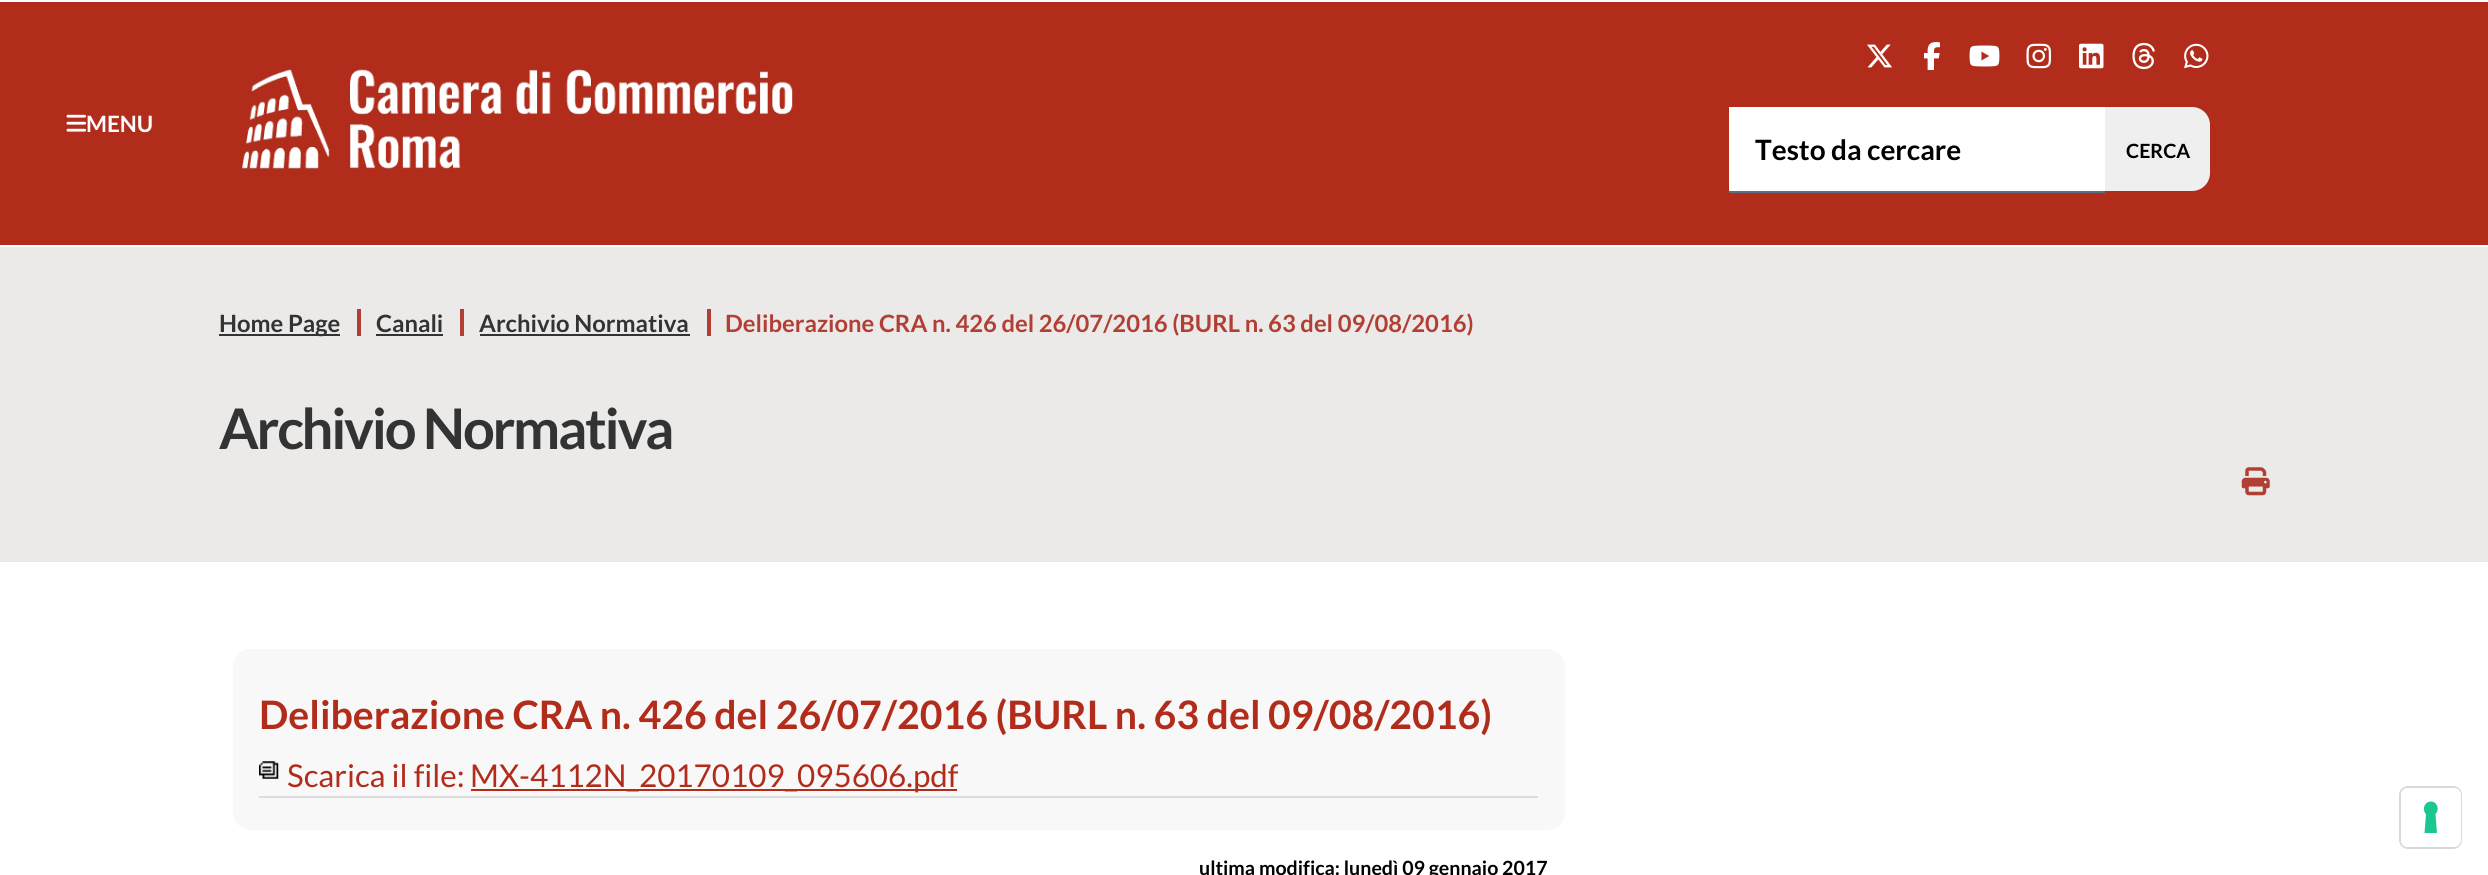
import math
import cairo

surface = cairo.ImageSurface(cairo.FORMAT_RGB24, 2488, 875)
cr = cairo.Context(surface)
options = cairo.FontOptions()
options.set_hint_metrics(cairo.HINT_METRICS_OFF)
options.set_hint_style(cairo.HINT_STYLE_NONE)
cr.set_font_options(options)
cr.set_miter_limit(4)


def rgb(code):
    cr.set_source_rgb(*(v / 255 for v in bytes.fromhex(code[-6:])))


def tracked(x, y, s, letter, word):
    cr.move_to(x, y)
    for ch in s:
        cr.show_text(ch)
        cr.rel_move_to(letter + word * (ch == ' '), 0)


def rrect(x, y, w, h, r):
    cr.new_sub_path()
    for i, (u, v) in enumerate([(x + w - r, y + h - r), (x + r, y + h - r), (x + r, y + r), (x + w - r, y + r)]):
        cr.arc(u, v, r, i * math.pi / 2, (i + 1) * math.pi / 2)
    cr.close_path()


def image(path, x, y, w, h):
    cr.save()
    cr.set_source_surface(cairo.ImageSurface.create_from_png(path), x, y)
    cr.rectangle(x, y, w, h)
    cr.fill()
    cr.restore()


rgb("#ffffff")
cr.paint()
rgb("#b12c1b")
cr.rectangle(0, 2, 2488, 243)
cr.fill()
image("img/1.png", 1867, 44, 25, 24)
image("img/2.png", 1924, 42, 16, 28)
image("img/3.png", 1969, 45, 31, 22)
image("img/4.png", 2026, 43, 25, 26)
image("img/5.png", 2079, 43, 25, 26)
image("img/6.png", 2132, 42, 23, 28)
image("img/7.png", 2184, 43, 25, 26)
image("img/8.png", 242, 69, 551, 100)
image("img/9.png", 66, 114, 21, 18)
rgb("#ffffff")
cr.rectangle(1729, 107, 376, 84)
cr.fill()
rgb("#5c6f82")
cr.rectangle(1729, 191, 376, 2)
cr.fill()
rgb("#efefef")
cr.new_path()
cr.move_to(2105, 107)
cr.line_to(2192, 107)
cr.curve_to(2202, 107, 2210, 115, 2210, 125)
cr.line_to(2210, 173)
cr.curve_to(2210, 183, 2202, 191, 2192, 191)
cr.line_to(2105, 191)
cr.close_path()
cr.fill()
for x, y, w, h, color in [
    (0, 247, 2488, 315, "#ece9e9"),
    (219, 334, 121, 2, "#333333"),
    (357, 309, 4, 27, "#b13f34"),
    (376, 334, 67, 2, "#333333"),
    (460, 309, 4, 27, "#b13f34"),
    (480, 334, 210, 2, "#333333"),
    (707, 309, 4, 27, "#b13f34"),
]:
    rgb(color)
    cr.rectangle(x, y, w, h)
    cr.fill()
image("img/10.png", 2241, 467, 29, 29)
rgb("#f8f8f8")
rrect(233, 649, 1332, 181, 18)
cr.fill()
image("img/11.png", 259, 761, 20, 18)
rgb("#dddddd")
cr.rectangle(259, 796, 1279, 2)
cr.fill()
rgb("#b12c1b")
cr.rectangle(471, 789, 486, 2)
cr.fill()
rrect(2400, 787, 61, 61, 8)
rgb("#d9d9d9")
cr.stroke()
rgb("#ffffff")
rrect(2401, 788, 60, 59, 7)
cr.fill()
rgb("#1cc691")
cr.set_fill_rule(cairo.FILL_RULE_EVEN_ODD)
cr.new_path()
cr.move_to(2431, 801.5)
cr.curve_to(2437, 801.5, 2440, 809.5, 2435.5, 814)
cr.line_to(2437, 833)
cr.line_to(2424.5, 833)
cr.line_to(2426, 814)
cr.curve_to(2421.5, 809.5, 2424.5, 801.5, 2431, 801.5)
cr.close_path()
cr.fill()
cr.select_font_face("Lato", cairo.FONT_SLANT_NORMAL, cairo.FONT_WEIGHT_BOLD)
cr.set_font_size(22.5)
rgb("#ffffff")
cr.move_to(86, 132)
cr.show_text("MENU")
cr.set_font_size(28)
rgb("#000000")
cr.move_to(1755, 160)
cr.show_text("Testo da cercare")
cr.set_font_size(19.6)
cr.move_to(2126, 158)
cr.show_text("CERCA")
cr.set_font_size(23.8)
rgb("#333333")
for x, y, s in [
    (219, 332, "Home Page"),
    (376, 332, "Canali"),
    (479, 332, "Archivio Normativa"),
]:
    cr.move_to(x, y)
    cr.show_text(s)
rgb("#b13f34")
cr.move_to(725, 332)
cr.show_text("Deliberazione CRA n. 426 del 26/07/2016 (BURL n. 63 del 09/08/2016)")
cr.set_font_size(56)
rgb("#333333")
tracked(219, 449, "Archivio Normativa", -2.25, 0)
cr.set_font_size(39.2)
rgb("#b12c1b")
cr.move_to(259, 729)
cr.show_text("Deliberazione CRA n. 426 del 26/07/2016 (BURL n. 63 del 09/08/2016)")
cr.select_font_face("Lato")
cr.set_font_size(31.4)
cr.move_to(287, 787)
cr.show_text("Scarica il file:")
cr.move_to(470, 787)
cr.show_text("MX-4112N_20170109_095606.pdf")
cr.select_font_face("Lato", cairo.FONT_SLANT_NORMAL, cairo.FONT_WEIGHT_BOLD)
cr.set_font_size(19.6)
rgb("#000000")
cr.move_to(1199, 875)
cr.show_text("ultima modifica: lunedì 09 gennaio 2017")
surface.write_to_png("page.png")
